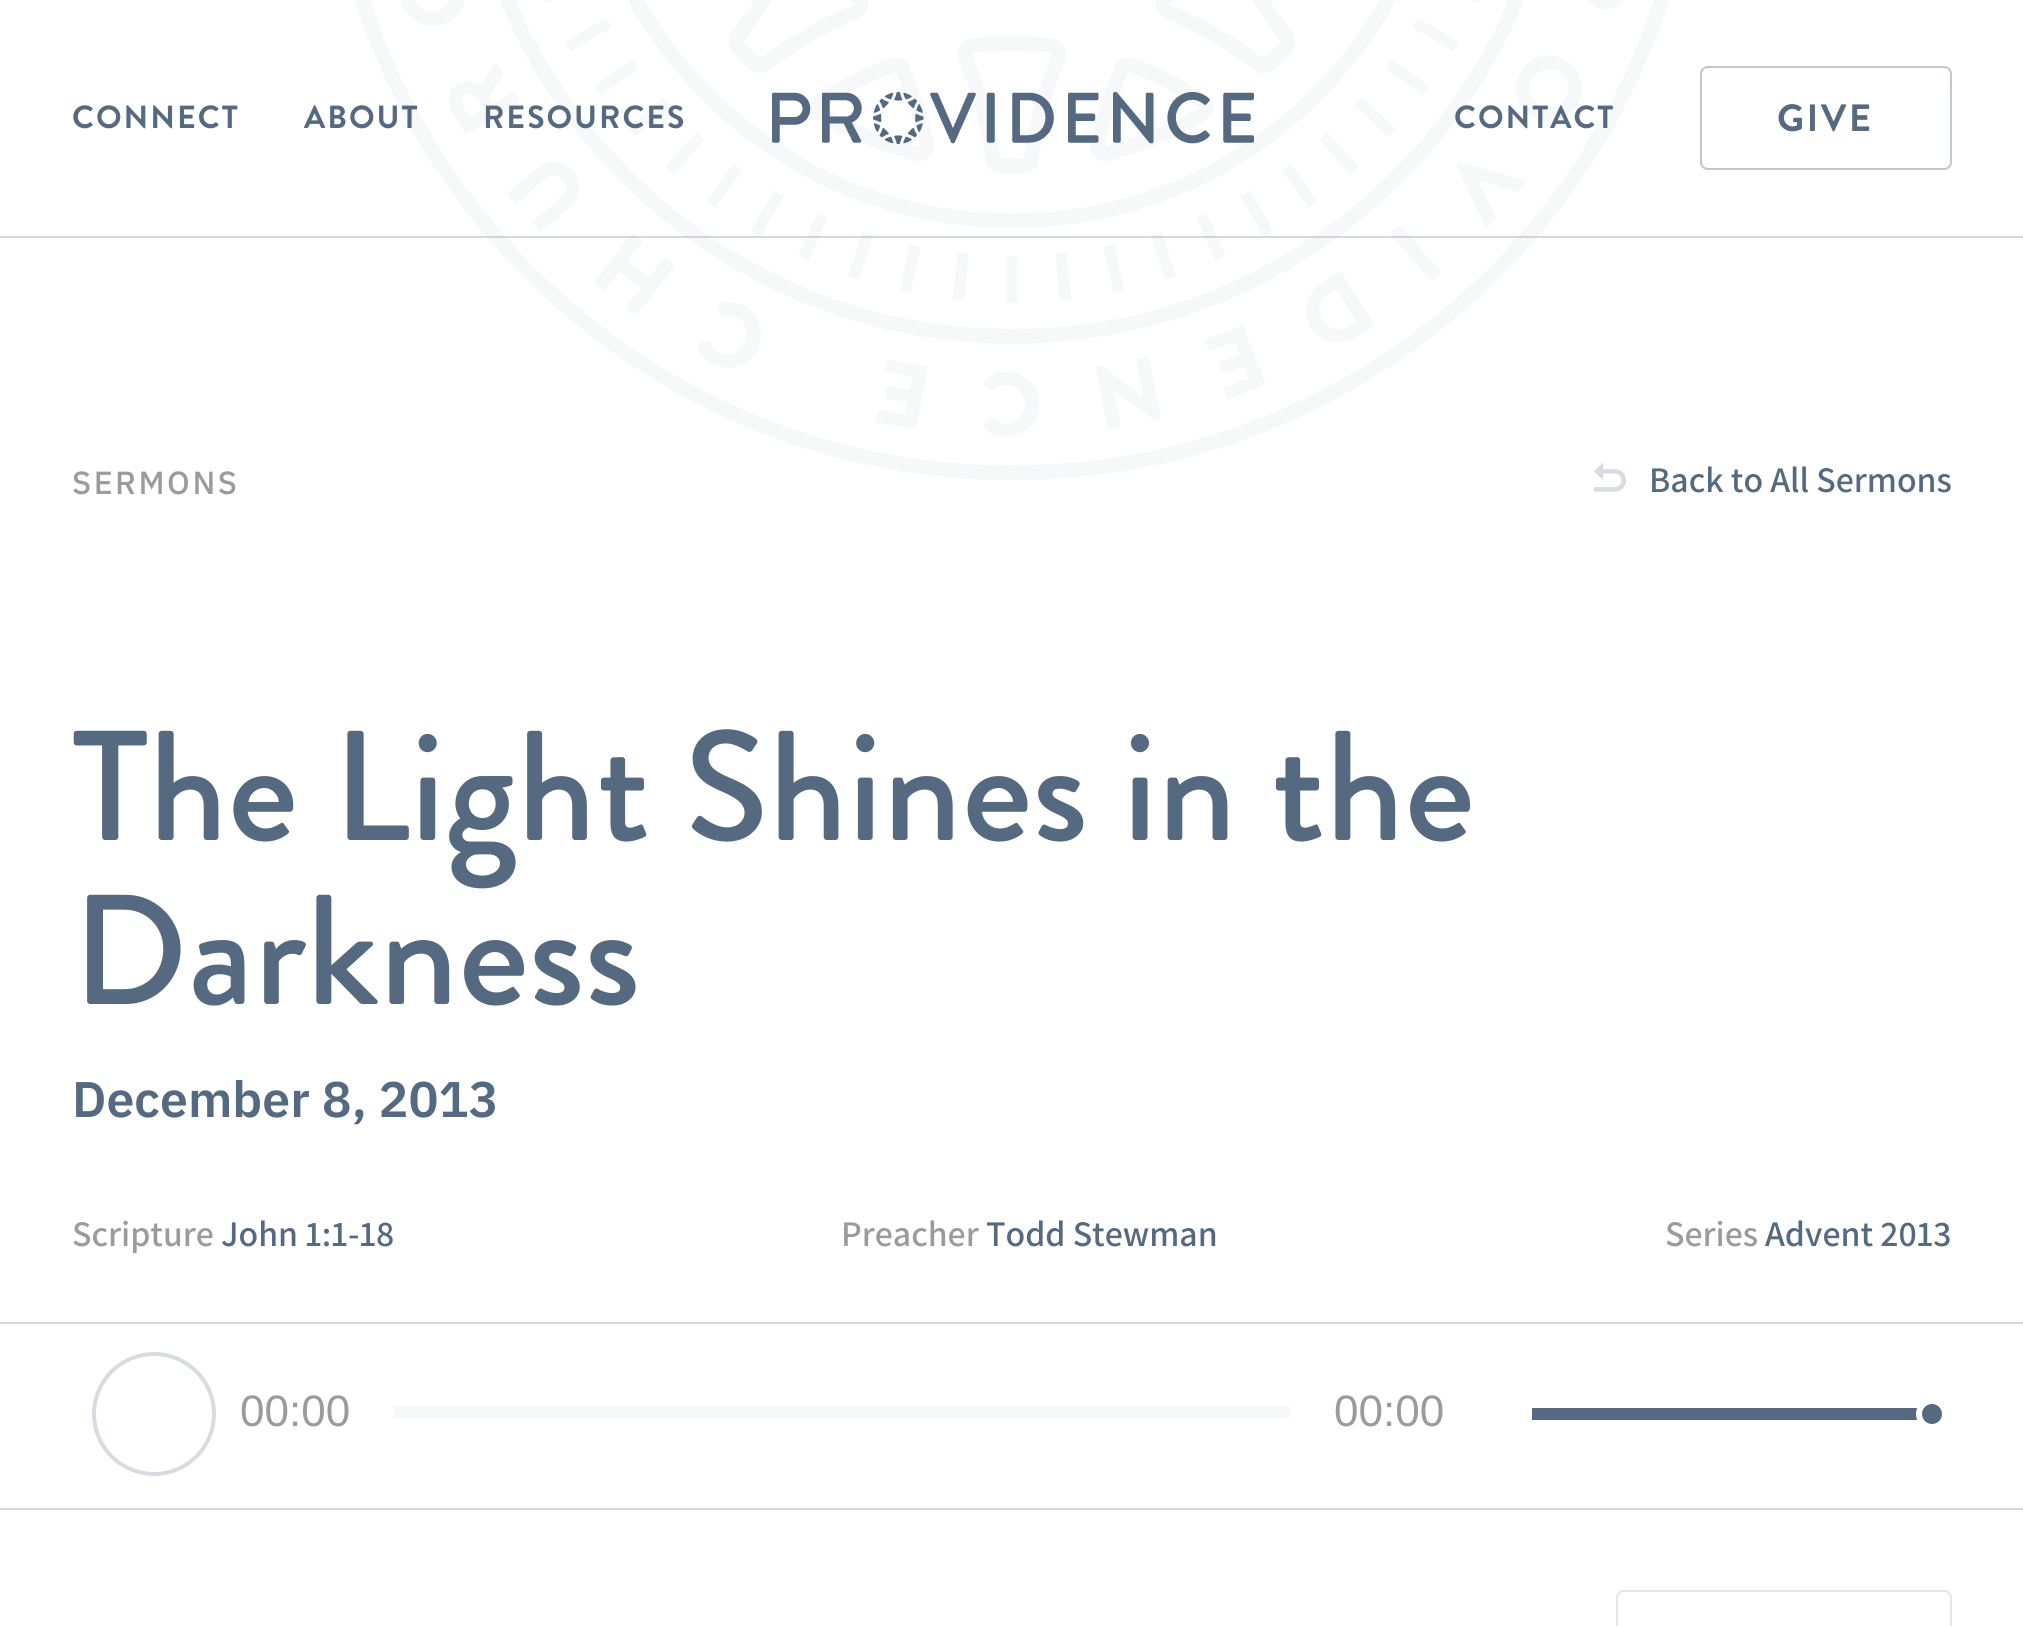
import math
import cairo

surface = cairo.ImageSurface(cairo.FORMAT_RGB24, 2023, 1626)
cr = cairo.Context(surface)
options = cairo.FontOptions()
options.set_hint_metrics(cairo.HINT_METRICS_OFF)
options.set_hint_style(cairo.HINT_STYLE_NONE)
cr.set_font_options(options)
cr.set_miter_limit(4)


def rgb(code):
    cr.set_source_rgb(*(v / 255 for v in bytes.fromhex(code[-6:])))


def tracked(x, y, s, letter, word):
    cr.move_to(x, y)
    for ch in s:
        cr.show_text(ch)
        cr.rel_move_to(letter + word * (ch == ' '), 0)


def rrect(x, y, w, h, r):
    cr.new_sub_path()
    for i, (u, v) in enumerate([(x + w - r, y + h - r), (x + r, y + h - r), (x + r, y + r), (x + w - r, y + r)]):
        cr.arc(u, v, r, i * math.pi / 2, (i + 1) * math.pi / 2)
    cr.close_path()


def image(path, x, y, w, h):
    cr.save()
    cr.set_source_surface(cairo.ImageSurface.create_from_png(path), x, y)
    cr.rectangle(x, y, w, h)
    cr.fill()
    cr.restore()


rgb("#ffffff")
cr.paint()
image("img/1.png", 355, 0, 1314, 480)
cr.set_source_rgba(0.333, 0.412, 0.502, 0.25)
cr.rectangle(0, 236, 2023, 2)
cr.fill()
image("img/2.png", 772, 92, 482, 52)
rrect(1701, 67, 250, 102, 7)
rgb("#bec6cf")
cr.stroke()
image("img/3.png", 1594, 462, 32, 30)
rgb("#d5dadf")
cr.rectangle(0, 1322, 2023, 2)
cr.fill()
cr.rectangle(0, 1508, 2023, 2)
cr.fill()
cr.arc(154, 1414, 60, 0, 2 * math.pi)
rgb("#d8dce2")
cr.set_line_width(4)
cr.stroke()
rgb("#f7f8f9")
cr.rectangle(394, 1406, 896, 12)
cr.fill()
rgb("#556980")
cr.rectangle(1532, 1408, 386, 12)
cr.fill()
cr.arc(1932, 1414, 13, 0, 2 * math.pi)
cr.fill_preserve()
rgb("#ffffff")
cr.set_line_width(6)
cr.stroke()
rrect(1617, 1591, 334, 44, 7)
rgb("#e6e6e6")
cr.set_line_width(2)
cr.stroke()
cr.select_font_face("Brandon Grotesque", cairo.FONT_SLANT_NORMAL, cairo.FONT_WEIGHT_BOLD)
cr.set_font_size(32)
rgb("#556980")
for x, y, s in [
    (72, 128, "CONNECT"),
    (304, 128, "ABOUT"),
    (483, 128, "RESOURCES"),
    (1454, 128, "CONTACT"),
]:
    tracked(x, y, s, 2, 0)
cr.set_font_size(38)
tracked(1777, 131, "GIVE", 2.5, 0)
cr.select_font_face("IBM Plex Sans Medium")
cr.set_font_size(32)
rgb("#9b9b9b")
tracked(72, 494, "SERMONS", 2.5, 0)
cr.select_font_face("Assistant SemiBold")
cr.set_font_size(36)
rgb("#556980")
cr.move_to(1649, 492)
cr.show_text("Back to All Sermons")
cr.select_font_face("Brandon Grotesque Medium")
cr.set_font_size(156)
cr.move_to(72, 840)
cr.show_text("The Light Shines in the")
cr.move_to(72, 1004)
cr.show_text("Darkness")
cr.select_font_face("IBM Plex Sans SemiBold")
cr.set_font_size(50)
cr.move_to(72, 1117)
cr.show_text("December 8, 2013")
cr.select_font_face("Assistant SemiBold")
cr.set_font_size(36)
rgb("#9b9b9b")
cr.move_to(72, 1246)
cr.show_text("Scripture")
rgb("#556980")
cr.move_to(221, 1246)
cr.show_text("John 1:1-18")
rgb("#9b9b9b")
cr.move_to(841, 1246)
cr.show_text("Preacher")
rgb("#556980")
cr.move_to(986, 1246)
cr.show_text("Todd Stewman")
rgb("#9b9b9b")
cr.move_to(1665, 1246)
cr.show_text("Series")
rgb("#556980")
cr.move_to(1765, 1246)
cr.show_text("Advent 2013")
cr.select_font_face("Liberation Sans")
cr.set_font_size(44)
rgb("#9b9b9b")
cr.move_to(240, 1426)
cr.show_text("00:00")
cr.move_to(1334, 1426)
cr.show_text("00:00")
surface.write_to_png("page.png")
